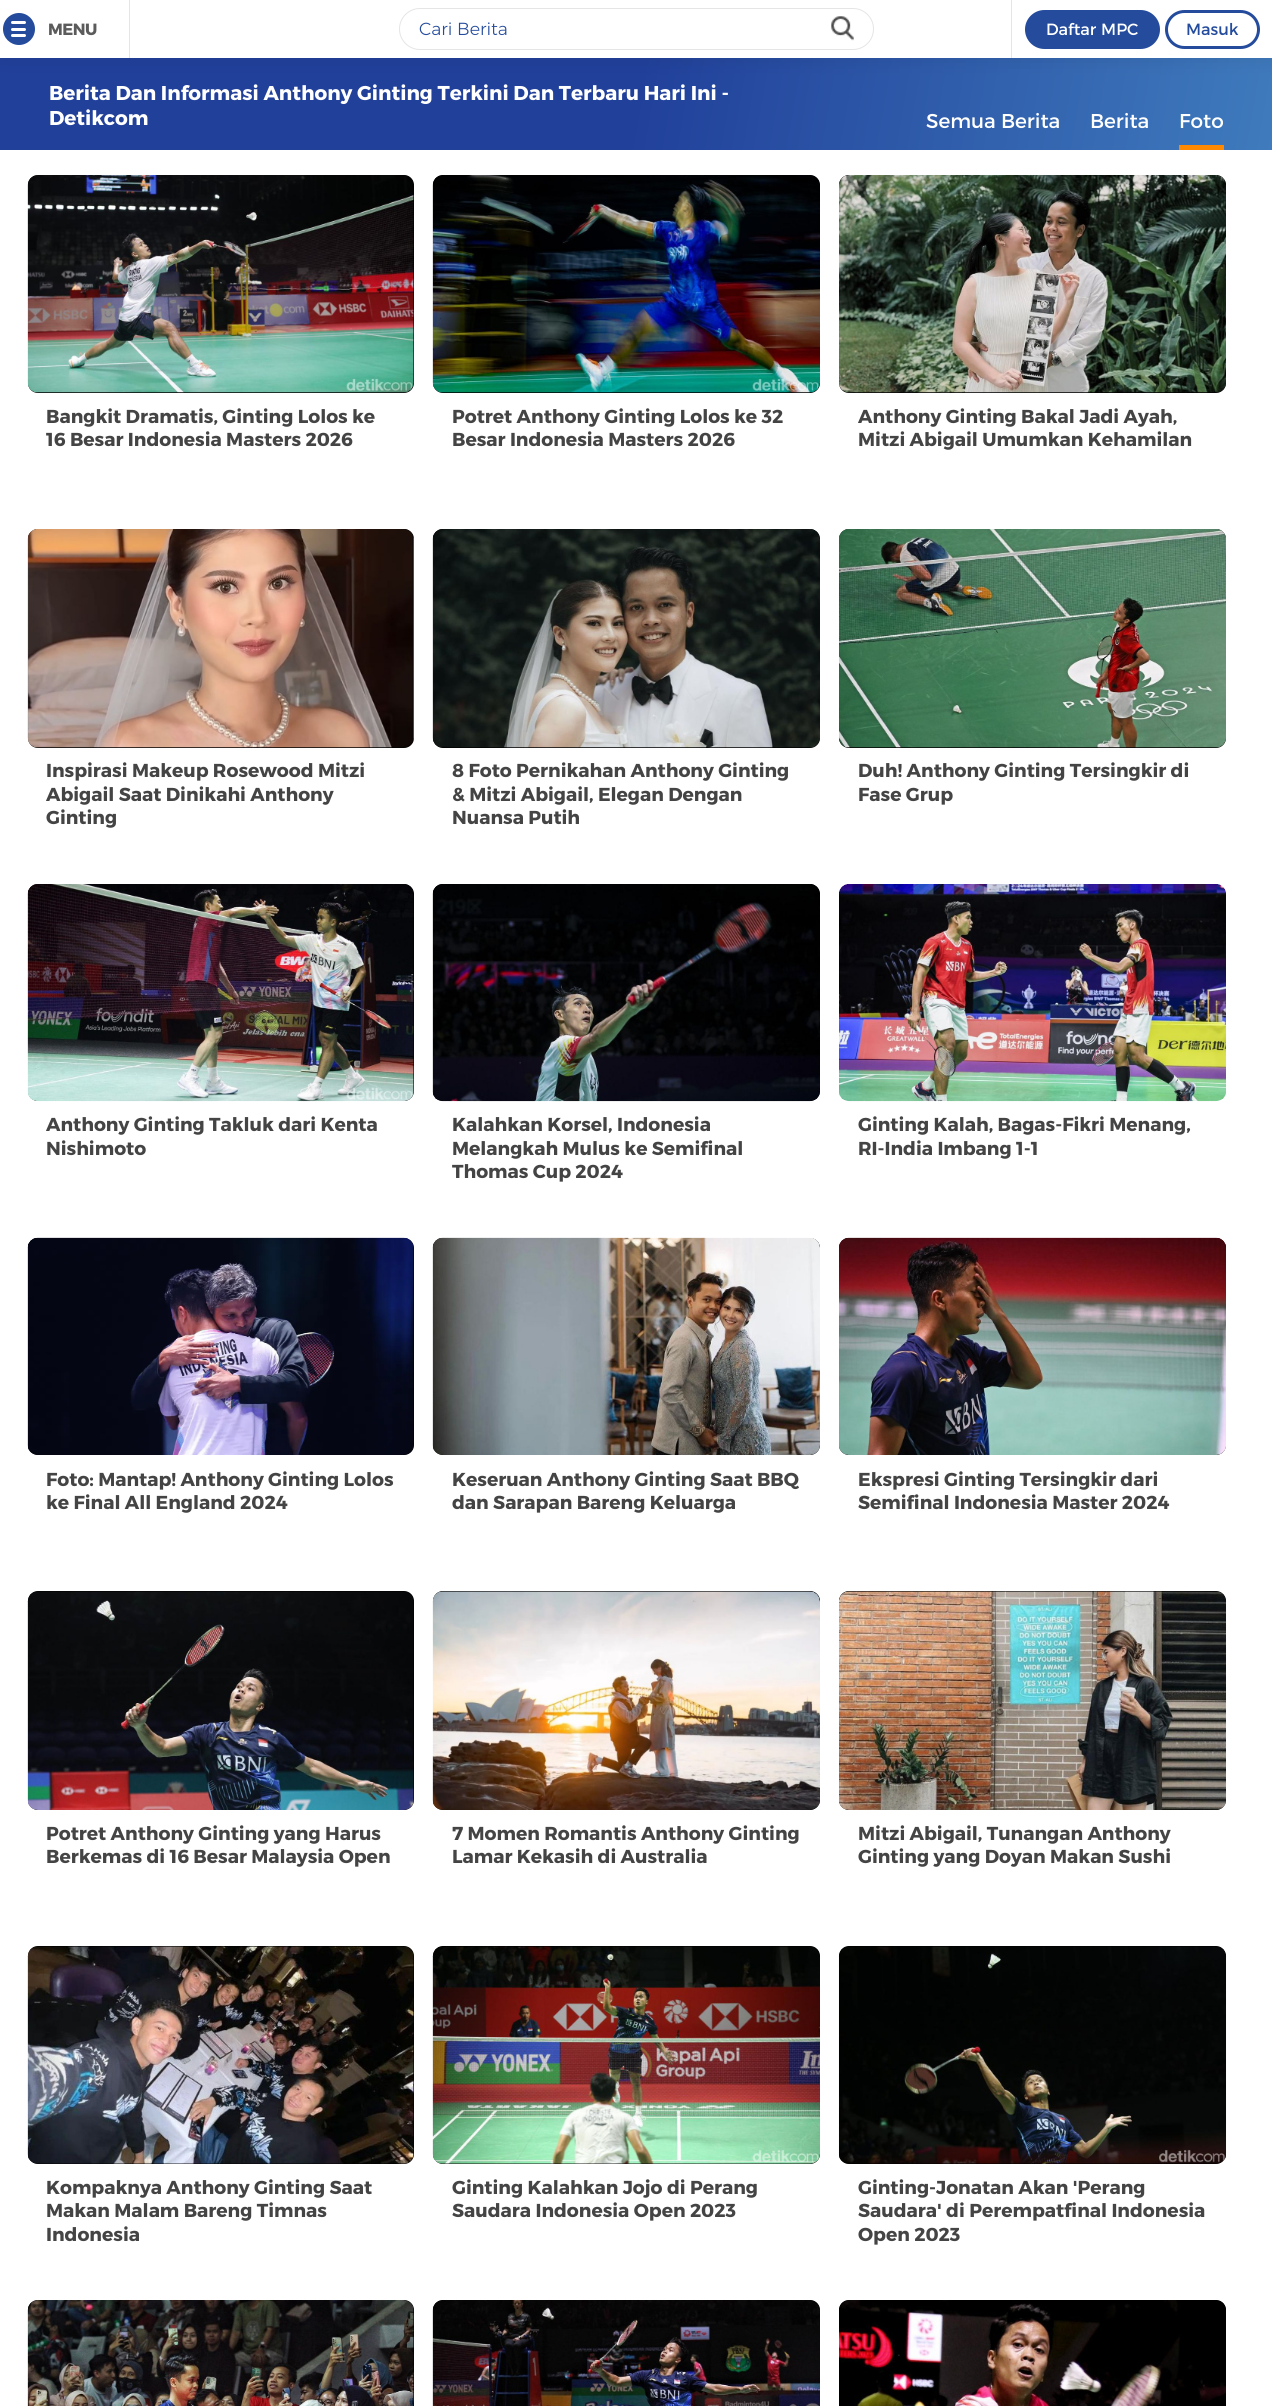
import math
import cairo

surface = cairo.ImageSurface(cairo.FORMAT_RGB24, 1272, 2406)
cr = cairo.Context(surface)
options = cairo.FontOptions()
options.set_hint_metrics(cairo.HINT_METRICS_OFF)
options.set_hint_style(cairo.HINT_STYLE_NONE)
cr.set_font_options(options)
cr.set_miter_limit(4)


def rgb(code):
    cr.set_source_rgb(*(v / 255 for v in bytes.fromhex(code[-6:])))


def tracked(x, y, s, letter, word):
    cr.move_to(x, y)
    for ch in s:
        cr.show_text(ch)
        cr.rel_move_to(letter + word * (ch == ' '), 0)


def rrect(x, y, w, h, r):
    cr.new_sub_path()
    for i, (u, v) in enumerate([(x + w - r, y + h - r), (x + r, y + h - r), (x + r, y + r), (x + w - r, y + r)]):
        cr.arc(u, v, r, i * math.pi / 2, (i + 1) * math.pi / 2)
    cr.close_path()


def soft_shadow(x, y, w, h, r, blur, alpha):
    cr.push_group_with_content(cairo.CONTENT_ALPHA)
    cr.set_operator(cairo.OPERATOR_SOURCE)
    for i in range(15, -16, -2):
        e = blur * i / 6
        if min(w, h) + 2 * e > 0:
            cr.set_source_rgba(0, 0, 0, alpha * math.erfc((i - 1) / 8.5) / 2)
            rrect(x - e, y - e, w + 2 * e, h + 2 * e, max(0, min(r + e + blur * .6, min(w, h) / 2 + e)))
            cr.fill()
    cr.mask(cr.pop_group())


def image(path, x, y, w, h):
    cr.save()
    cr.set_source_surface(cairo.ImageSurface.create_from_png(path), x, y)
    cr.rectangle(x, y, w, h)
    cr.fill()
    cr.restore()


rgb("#ffffff")
cr.paint()
gradient = cairo.LinearGradient(11, -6.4, 1261, 214)
gradient.add_color_stop_rgba(0.5, 0.129, 0.251, 0.604, 1)
gradient.add_color_stop_rgba(1, 0.247, 0.482, 0.741, 1)
cr.set_source(gradient)
cr.rectangle(0, 58, 1272, 92)
cr.fill()
rgb("#000000")
soft_shadow(0, 0, 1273, 58, 0, 9.5, 0.1)
rgb("#ffffff")
cr.rectangle(0, 0, 1272, 58)
cr.fill()
rgb("#e5e5e5")
cr.rectangle(129, 0, 1, 58)
cr.fill()
rgb("#244b9c")
cr.arc(19, 29, 16, 0, 2 * math.pi)
cr.fill()
rgb("#ffffff")
rrect(11, 21, 15, 3, 1.5)
cr.fill()
rrect(11, 28, 15, 3, 1.5)
cr.fill()
rrect(11, 34, 15, 3, 1.5)
cr.fill()
rrect(399.5, 8.5, 474, 41, 20.5)
rgb("#e5e5e5")
cr.set_line_width(1)
cr.stroke()
image("img/1.png", 831, 16, 23, 25)
cr.rectangle(1011, 0, 1, 58)
cr.fill()
rgb("#244b9c")
rrect(1026.5, 11.5, 132, 36, 18)
cr.fill_preserve()
cr.set_line_width(3)
cr.stroke()
rrect(1166.5, 11.5, 92, 36, 18)
cr.stroke()
rgb("#ff8900")
cr.rectangle(1179, 145, 45, 5)
cr.fill()
rgb("#000000")
rrect(28, 175, 386, 218, 10)
cr.fill()
image("img/2.png", 27, 175, 387, 218)
rrect(433, 175, 387, 218, 10)
cr.fill()
image("img/3.png", 432, 175, 388, 218)
rrect(839, 175, 387, 218, 10)
cr.fill()
image("img/4.png", 839, 175, 387, 218)
rrect(28, 529, 386, 219, 10)
cr.fill()
image("img/5.png", 27, 529, 387, 219)
rrect(433, 529, 387, 219, 10)
cr.fill()
image("img/6.png", 432, 529, 388, 219)
rrect(839, 529, 387, 219, 10)
cr.fill()
image("img/7.png", 839, 529, 387, 219)
rrect(28, 884, 386, 217, 10)
cr.fill()
image("img/8.png", 27, 884, 387, 218)
rrect(433, 884, 387, 217, 10)
cr.fill()
image("img/9.png", 432, 884, 388, 218)
image("img/10.png", 839, 884, 387, 218)
rrect(28, 1238, 386, 217, 10)
cr.fill()
image("img/11.png", 27, 1237, 387, 218)
rrect(433, 1238, 387, 217, 10)
cr.fill()
image("img/12.png", 432, 1237, 388, 218)
rrect(839, 1238, 387, 217, 10)
cr.fill()
image("img/13.png", 839, 1237, 387, 218)
rrect(28, 1591, 386, 219, 10)
cr.fill()
image("img/14.png", 27, 1591, 387, 219)
rrect(433, 1591, 387, 219, 10)
cr.fill()
image("img/15.png", 432, 1591, 388, 219)
rrect(839, 1591, 387, 219, 10)
cr.fill()
image("img/16.png", 839, 1591, 388, 219)
rrect(28, 1946, 386, 218, 10)
cr.fill()
image("img/17.png", 27, 1946, 387, 218)
rrect(433, 1946, 387, 218, 10)
cr.fill()
image("img/18.png", 432, 1946, 388, 218)
rrect(839, 1946, 387, 218, 10)
cr.fill()
image("img/19.png", 838, 1946, 389, 218)
rrect(28, 2300, 386, 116, 10)
cr.fill()
image("img/20.png", 27, 2300, 387, 106)
rrect(433, 2300, 387, 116, 10)
cr.fill()
image("img/21.png", 432, 2300, 388, 106)
rrect(839, 2300, 387, 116, 10)
cr.fill()
image("img/22.png", 839, 2300, 387, 106)
cr.select_font_face("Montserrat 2", cairo.FONT_SLANT_NORMAL, cairo.FONT_WEIGHT_BOLD)
cr.set_font_size(16.25)
rgb("#5b5b5b")
tracked(48, 35, "MENU", -0.5, 0)
cr.select_font_face("Montserrat Light")
cr.set_font_size(17.5)
rgb("#244b9c")
cr.move_to(419, 35)
cr.show_text("Cari Berita")
cr.select_font_face("Montserrat 2")
cr.set_font_size(16.25)
rgb("#ffffff")
cr.move_to(1046, 35)
cr.show_text("Daftar MPC")
rgb("#244b9c")
cr.move_to(1186, 35)
cr.show_text("Masuk")
cr.select_font_face("Montserrat", cairo.FONT_SLANT_NORMAL, cairo.FONT_WEIGHT_BOLD)
cr.set_font_size(20)
rgb("#ffffff")
cr.move_to(49, 100)
cr.show_text("Berita Dan Informasi Anthony Ginting Terkini Dan Terbaru Hari Ini -")
cr.move_to(49, 125)
cr.show_text("Detikcom")
cr.select_font_face("Montserrat")
for x, y, s in [
    (926, 128, "Semua Berita"),
    (1090, 128, "Berita"),
    (1179, 128, "Foto"),
]:
    cr.move_to(x, y)
    cr.show_text(s)
cr.select_font_face("Montserrat", cairo.FONT_SLANT_NORMAL, cairo.FONT_WEIGHT_BOLD)
cr.set_font_size(18.75)
rgb("#444444")
for x, y, s in [
    (46, 423, "Bangkit Dramatis, Ginting Lolos ke"),
    (46, 446, "16 Besar Indonesia Masters 2026"),
    (452, 423, "Potret Anthony Ginting Lolos ke 32"),
    (452, 446, "Besar Indonesia Masters 2026"),
    (858, 423, "Anthony Ginting Bakal Jadi Ayah,"),
    (858, 446, "Mitzi Abigail Umumkan Kehamilan"),
    (46, 777, "Inspirasi Makeup Rosewood Mitzi"),
    (46, 801, "Abigail Saat Dinikahi Anthony"),
    (46, 824, "Ginting"),
    (452, 777, "8 Foto Pernikahan Anthony Ginting"),
    (452, 801, "& Mitzi Abigail, Elegan Dengan"),
    (452, 824, "Nuansa Putih"),
    (858, 777, "Duh! Anthony Ginting Tersingkir di"),
    (858, 801, "Fase Grup"),
    (46, 1131, "Anthony Ginting Takluk dari Kenta"),
    (46, 1155, "Nishimoto"),
    (452, 1131, "Kalahkan Korsel, Indonesia"),
    (452, 1155, "Melangkah Mulus ke Semifinal"),
    (452, 1178, "Thomas Cup 2024"),
    (858, 1131, "Ginting Kalah, Bagas-Fikri Menang,"),
    (858, 1155, "RI-India Imbang 1-1"),
    (46, 1486, "Foto: Mantap! Anthony Ginting Lolos"),
    (46, 1509, "ke Final All England 2024"),
    (452, 1486, "Keseruan Anthony Ginting Saat BBQ"),
    (452, 1509, "dan Sarapan Bareng Keluarga"),
    (858, 1486, "Ekspresi Ginting Tersingkir dari"),
    (858, 1509, "Semifinal Indonesia Master 2024"),
    (46, 1840, "Potret Anthony Ginting yang Harus"),
    (46, 1863, "Berkemas di 16 Besar Malaysia Open"),
    (452, 1840, "7 Momen Romantis Anthony Ginting"),
    (452, 1863, "Lamar Kekasih di Australia"),
    (858, 1840, "Mitzi Abigail, Tunangan Anthony"),
    (858, 1863, "Ginting yang Doyan Makan Sushi"),
    (46, 2194, "Kompaknya Anthony Ginting Saat"),
    (46, 2217, "Makan Malam Bareng Timnas"),
    (46, 2241, "Indonesia"),
    (452, 2194, "Ginting Kalahkan Jojo di Perang"),
    (452, 2217, "Saudara Indonesia Open 2023"),
    (858, 2194, "Ginting-Jonatan Akan 'Perang"),
    (858, 2217, "Saudara' di Perempatfinal Indonesia"),
    (858, 2241, "Open 2023"),
]:
    cr.move_to(x, y)
    cr.show_text(s)
surface.write_to_png("page.png")
